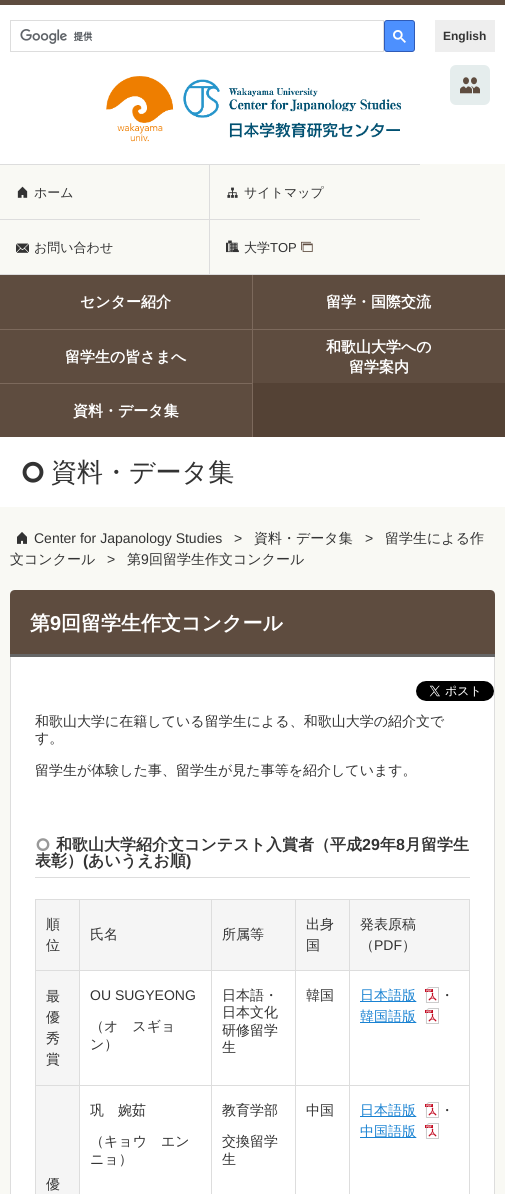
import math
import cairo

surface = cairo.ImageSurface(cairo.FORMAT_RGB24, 505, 1194)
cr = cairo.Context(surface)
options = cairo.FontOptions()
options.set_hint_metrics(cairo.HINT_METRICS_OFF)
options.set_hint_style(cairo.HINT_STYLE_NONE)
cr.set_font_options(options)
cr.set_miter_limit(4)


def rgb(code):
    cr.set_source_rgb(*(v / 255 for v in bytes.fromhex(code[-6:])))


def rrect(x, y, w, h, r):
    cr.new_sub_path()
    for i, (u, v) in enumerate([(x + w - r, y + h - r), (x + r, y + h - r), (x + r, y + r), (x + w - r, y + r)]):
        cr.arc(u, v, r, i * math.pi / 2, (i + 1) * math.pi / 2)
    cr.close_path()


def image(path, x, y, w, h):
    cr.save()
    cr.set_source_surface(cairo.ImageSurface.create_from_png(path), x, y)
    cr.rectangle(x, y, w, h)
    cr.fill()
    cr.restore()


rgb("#ffffff")
cr.paint()
rgb("#5e4c3f")
cr.rectangle(0, 0, 505, 5)
cr.fill()
cr.rectangle(10.5, 20.5, 373, 31)
rgb("#dddddd")
cr.set_line_width(1)
cr.stroke()
image("img/1.png", 20, 29, 73, 15)
rgb("#4d90fe")
rrect(384.5, 20.5, 30, 31, 2.5)
cr.fill_preserve()
rgb("#2f5bb7")
cr.stroke()
image("img/2.png", 393, 30, 13, 13)
rgb("#eeeeee")
cr.rectangle(435, 20, 60, 32)
cr.fill()
image("img/3.png", 106, 76, 295, 66)
rgb("#e5eded")
rrect(450, 65, 40, 40, 6)
cr.fill()
image("img/4.png", 460, 77, 20, 17)
for x, y, w, h, color in [
    (0, 164, 505, 110, "#f9f9f4"),
    (0, 274, 505, 1, "#dddddd"),
    (0, 164, 420, 1, "#dddddd"),
    (209, 164, 1, 55, "#dddddd"),
]:
    rgb(color)
    cr.rectangle(x, y, w, h)
    cr.fill()
image("img/5.png", 17, 186, 11, 12)
image("img/6.png", 227, 187, 11, 11)
cr.rectangle(0, 219, 420, 1)
cr.fill()
cr.rectangle(209, 219, 1, 55)
cr.fill()
image("img/7.png", 16, 243, 13, 10)
image("img/8.png", 226, 240, 13, 13)
image("img/9.png", 301, 241, 12, 11)
for x, y, w, h, color in [
    (253, 383, 252, 54, "#544235"),
    (0, 275, 252, 54, "#5e4c3f"),
    (252, 275, 1, 54, "#7c695c"),
    (253, 275, 252, 54, "#5e4c3f"),
    (0, 330, 252, 53, "#5e4c3f"),
    (0, 329, 505, 1, "#7c695c"),
    (252, 329, 1, 54, "#7c695c"),
    (253, 330, 252, 53, "#5e4c3f"),
    (0, 384, 252, 53, "#5e4c3f"),
    (0, 383, 253, 1, "#7c695c"),
    (252, 383, 1, 54, "#7c695c"),
]:
    rgb(color)
    cr.rectangle(x, y, w, h)
    cr.fill()
image("img/10.png", 22, 461, 22, 22)
rgb("#f9f9f4")
cr.rectangle(0, 507, 505, 687)
cr.fill()
image("img/11.png", 17, 532, 10, 12)
rgb("#5e4c3f")
cr.new_path()
cr.move_to(15, 590)
cr.line_to(490, 590)
cr.curve_to(493, 590, 495, 592, 495, 595)
cr.line_to(495, 657)
cr.line_to(10, 657)
cr.line_to(10, 595)
cr.curve_to(10, 592, 12, 590, 15, 590)
cr.close_path()
cr.fill()
for x, y, w, h, color in [
    (10, 654, 485, 3, "#666666"),
    (11, 657, 483, 537, "#ffffff"),
    (494, 657, 1, 537, "#dddddd"),
    (10, 657, 1, 537, "#dddddd"),
]:
    rgb(color)
    cr.rectangle(x, y, w, h)
    cr.fill()
image("img/12.png", 416, 681, 78, 20)
cr.rectangle(35, 877, 435, 1)
cr.fill()
image("img/13.png", 36, 838, 14, 13)
for x, y, w, h, color in [
    (36, 900, 43, 70, "#f5f5f5"),
    (349, 899, 121, 1, "#dddddd"),
    (349, 970, 121, 1, "#dddddd"),
    (349, 1085, 121, 1, "#dddddd"),
    (349, 1085, 1, 109, "#dddddd"),
    (295, 1085, 55, 1, "#dddddd"),
    (349, 970, 1, 116, "#dddddd"),
    (295, 970, 55, 1, "#dddddd"),
    (349, 899, 1, 72, "#dddddd"),
    (295, 899, 55, 1, "#dddddd"),
    (295, 1085, 1, 109, "#dddddd"),
    (211, 1085, 85, 1, "#dddddd"),
    (295, 970, 1, 116, "#dddddd"),
    (211, 970, 85, 1, "#dddddd"),
    (295, 899, 1, 72, "#dddddd"),
    (211, 899, 85, 1, "#dddddd"),
    (211, 1085, 1, 109, "#dddddd"),
    (79, 1085, 133, 1, "#dddddd"),
    (211, 970, 1, 116, "#dddddd"),
    (79, 970, 133, 1, "#dddddd"),
    (211, 899, 1, 72, "#dddddd"),
    (79, 899, 133, 1, "#dddddd"),
    (79, 1085, 1, 109, "#dddddd"),
    (35, 1085, 45, 1, "#dddddd"),
    (79, 970, 1, 116, "#dddddd"),
    (35, 970, 45, 1, "#dddddd"),
    (79, 899, 1, 72, "#dddddd"),
    (35, 899, 45, 1, "#dddddd"),
    (35, 1085, 1, 109, "#dddddd"),
    (35, 970, 1, 116, "#dddddd"),
    (35, 899, 1, 72, "#dddddd"),
    (80, 900, 131, 70, "#f5f5f5"),
    (212, 900, 83, 70, "#f5f5f5"),
    (296, 900, 53, 70, "#f5f5f5"),
    (350, 900, 119, 70, "#f5f5f5"),
    (469, 1085, 1, 109, "#dddddd"),
    (469, 970, 1, 116, "#dddddd"),
    (469, 899, 1, 72, "#dddddd"),
    (36, 971, 43, 114, "#f5f5f5"),
    (360, 1001, 56, 1, "#1982d2"),
]:
    rgb(color)
    cr.rectangle(x, y, w, h)
    cr.fill()
image("img/14.png", 416, 987, 23, 16)
cr.rectangle(360, 1022, 56, 1)
cr.fill()
image("img/14.png", 416, 1008, 23, 16)
cr.rectangle(360, 1116, 56, 1)
cr.fill()
image("img/14.png", 416, 1102, 23, 16)
cr.rectangle(360, 1137, 56, 1)
cr.fill()
image("img/14.png", 416, 1123, 23, 16)
rgb("#f5f5f5")
cr.rectangle(36, 1086, 43, 108)
cr.fill()
cr.select_font_face("Liberation Sans", cairo.FONT_SLANT_NORMAL, cairo.FONT_WEIGHT_BOLD)
cr.set_font_size(12)
rgb("#333333")
cr.move_to(443, 40)
cr.show_text("English")
cr.select_font_face("WenQuanYi Zen Hei Medium")
cr.set_font_size(13)
for x, y, s in [
    (34, 197, "ホーム"),
    (244, 197, "サイトマップ"),
    (34, 252, "お問い合わせ"),
    (244, 252, "大学"),
]:
    cr.move_to(x, y)
    cr.show_text(s)
cr.select_font_face("Liberation Sans")
cr.move_to(270, 252)
cr.show_text("TOP")
cr.select_font_face("WenQuanYi Zen Hei", cairo.FONT_SLANT_NORMAL, cairo.FONT_WEIGHT_BOLD)
cr.set_font_size(15)
rgb("#ffffff")
for x, y, s in [
    (80, 307, "センター紹介"),
    (326, 307, "留学・国際交流"),
    (65, 362, "留学生の皆さまへ"),
    (326, 352, "和歌山大学への"),
    (349, 372, "留学案内"),
    (73, 416, "資料・データ集"),
]:
    cr.move_to(x, y)
    cr.show_text(s)
cr.select_font_face("WenQuanYi Zen Hei Medium")
cr.set_font_size(26)
rgb("#333333")
cr.move_to(51, 481)
cr.show_text("資料・データ集")
cr.select_font_face("Liberation Sans")
cr.set_font_size(14)
cr.move_to(34, 543)
cr.show_text("Center for Japanology Studies")
cr.move_to(234, 543)
cr.show_text(">")
cr.select_font_face("WenQuanYi Zen Hei Medium")
cr.move_to(254, 543)
cr.show_text("資料・データ集")
cr.select_font_face("Liberation Sans")
cr.move_to(365, 543)
cr.show_text(">")
cr.select_font_face("WenQuanYi Zen Hei Medium")
cr.move_to(385, 543)
cr.show_text("留学生による作")
cr.move_to(10, 564)
cr.show_text("文コンクール")
cr.select_font_face("Liberation Sans")
cr.move_to(107, 564)
cr.show_text(">")
cr.select_font_face("WenQuanYi Zen Hei Medium")
cr.move_to(127, 564)
cr.show_text("第")
cr.select_font_face("Liberation Sans")
cr.move_to(141, 564)
cr.show_text("9")
cr.select_font_face("WenQuanYi Zen Hei Medium")
cr.move_to(149, 564)
cr.show_text("回留学生作文コンクール")
cr.select_font_face("WenQuanYi Zen Hei", cairo.FONT_SLANT_NORMAL, cairo.FONT_WEIGHT_BOLD)
cr.set_font_size(20)
rgb("#ffffff")
cr.move_to(30, 630)
cr.show_text("第")
cr.select_font_face("Liberation Sans", cairo.FONT_SLANT_NORMAL, cairo.FONT_WEIGHT_BOLD)
cr.move_to(50, 630)
cr.show_text("9")
cr.select_font_face("WenQuanYi Zen Hei", cairo.FONT_SLANT_NORMAL, cairo.FONT_WEIGHT_BOLD)
cr.move_to(61, 630)
cr.show_text("回留学生作文コンクール")
cr.select_font_face("WenQuanYi Zen Hei Medium")
cr.set_font_size(14)
rgb("#333333")
for x, y, s in [
    (35, 726, "和歌山大学に在籍している留学生による、和歌山大学の紹介文で"),
    (35, 743, "す。"),
    (35, 775, "留学生が体験した事、留学生が見た事等を紹介しています。"),
]:
    cr.move_to(x, y)
    cr.show_text(s)
cr.select_font_face("WenQuanYi Zen Hei", cairo.FONT_SLANT_NORMAL, cairo.FONT_WEIGHT_BOLD)
cr.set_font_size(16)
cr.move_to(56, 850)
cr.show_text("和歌山大学紹介文コンテスト入賞者（平成")
cr.select_font_face("Liberation Sans", cairo.FONT_SLANT_NORMAL, cairo.FONT_WEIGHT_BOLD)
cr.move_to(362, 850)
cr.show_text("29")
cr.select_font_face("WenQuanYi Zen Hei", cairo.FONT_SLANT_NORMAL, cairo.FONT_WEIGHT_BOLD)
cr.move_to(380, 850)
cr.show_text("年")
cr.select_font_face("Liberation Sans", cairo.FONT_SLANT_NORMAL, cairo.FONT_WEIGHT_BOLD)
cr.move_to(396, 850)
cr.show_text("8")
cr.select_font_face("WenQuanYi Zen Hei", cairo.FONT_SLANT_NORMAL, cairo.FONT_WEIGHT_BOLD)
cr.move_to(405, 850)
cr.show_text("月留学生")
cr.move_to(35, 866)
cr.show_text("表彰）")
cr.select_font_face("Liberation Sans", cairo.FONT_SLANT_NORMAL, cairo.FONT_WEIGHT_BOLD)
cr.move_to(83, 866)
cr.show_text("(")
cr.select_font_face("WenQuanYi Zen Hei", cairo.FONT_SLANT_NORMAL, cairo.FONT_WEIGHT_BOLD)
cr.move_to(88, 866)
cr.show_text("あいうえお順")
cr.select_font_face("Liberation Sans", cairo.FONT_SLANT_NORMAL, cairo.FONT_WEIGHT_BOLD)
cr.move_to(186, 866)
cr.show_text(")")
cr.select_font_face("WenQuanYi Zen Hei Medium")
cr.set_font_size(14)
for x, y, s in [
    (46, 929, "順"),
    (46, 950, "位"),
    (90, 939, "氏名"),
    (222, 939, "所属等"),
    (306, 929, "出身"),
    (306, 950, "国"),
    (360, 929, "発表原稿"),
    (360, 950, "（"),
]:
    cr.move_to(x, y)
    cr.show_text(s)
cr.select_font_face("Liberation Sans")
cr.move_to(374, 950)
cr.show_text("PDF")
cr.select_font_face("WenQuanYi Zen Hei Medium")
for x, y, s in [
    (402, 950, "）"),
    (46, 1001, "最"),
    (46, 1022, "優"),
    (46, 1043, "秀"),
    (46, 1064, "賞"),
]:
    cr.move_to(x, y)
    cr.show_text(s)
cr.select_font_face("Liberation Sans")
cr.move_to(90, 1000)
cr.show_text("OU SUGYEONG")
cr.select_font_face("WenQuanYi Zen Hei Medium")
for x, y, s in [
    (90, 1031, "（オ　スギョ"),
    (90, 1049, "ン）"),
    (222, 1000, "日本語・"),
    (222, 1017, "日本文化"),
    (222, 1035, "研修留学"),
    (222, 1052, "生"),
    (306, 1000, "韓国"),
]:
    cr.move_to(x, y)
    cr.show_text(s)
rgb("#1982d2")
cr.move_to(360, 1000)
cr.show_text("日本語版")
rgb("#333333")
cr.move_to(440, 1000)
cr.show_text("・")
rgb("#1982d2")
cr.move_to(360, 1021)
cr.show_text("韓国語版")
rgb("#333333")
for x, y, s in [
    (90, 1115, "巩　婉茹"),
    (90, 1146, "（キョウ　エン"),
    (90, 1164, "ニョ）"),
    (222, 1115, "教育学部"),
    (222, 1146, "交換留学"),
    (222, 1164, "生"),
    (306, 1115, "中国"),
]:
    cr.move_to(x, y)
    cr.show_text(s)
rgb("#1982d2")
cr.move_to(360, 1115)
cr.show_text("日本語版")
rgb("#333333")
cr.move_to(440, 1115)
cr.show_text("・")
rgb("#1982d2")
cr.move_to(360, 1136)
cr.show_text("中国語版")
rgb("#333333")
cr.move_to(46, 1189)
cr.show_text("優")
surface.write_to_png("page.png")
